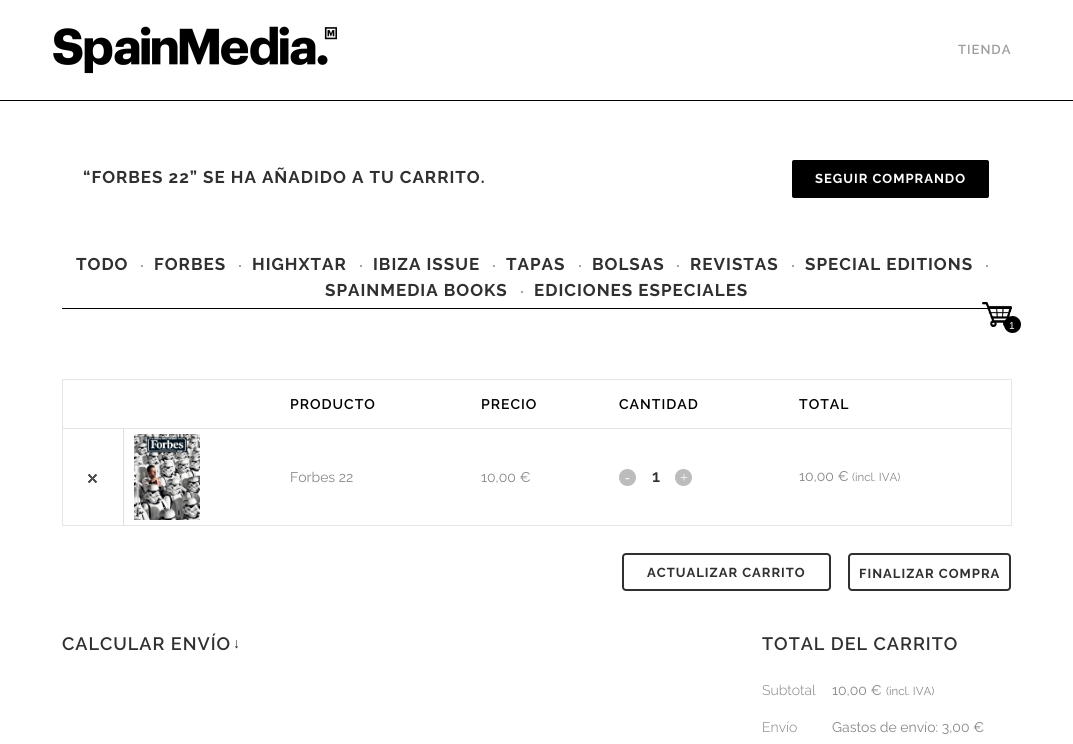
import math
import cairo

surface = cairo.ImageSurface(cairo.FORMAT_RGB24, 1073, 744)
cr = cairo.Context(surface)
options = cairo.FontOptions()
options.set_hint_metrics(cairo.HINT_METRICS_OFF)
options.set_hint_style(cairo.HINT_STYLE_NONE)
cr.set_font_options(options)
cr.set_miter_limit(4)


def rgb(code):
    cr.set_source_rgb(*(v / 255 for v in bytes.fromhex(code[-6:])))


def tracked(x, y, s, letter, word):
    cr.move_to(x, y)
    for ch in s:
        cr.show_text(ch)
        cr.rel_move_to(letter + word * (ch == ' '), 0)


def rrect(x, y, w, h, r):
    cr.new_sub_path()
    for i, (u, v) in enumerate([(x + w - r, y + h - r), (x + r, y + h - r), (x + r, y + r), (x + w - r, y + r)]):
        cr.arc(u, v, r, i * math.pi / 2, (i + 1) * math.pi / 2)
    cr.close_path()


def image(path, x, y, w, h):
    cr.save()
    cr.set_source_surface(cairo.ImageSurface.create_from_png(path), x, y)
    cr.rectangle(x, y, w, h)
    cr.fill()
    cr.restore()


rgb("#ffffff")
cr.paint()
rgb("#000000")
cr.rectangle(0, 100, 1073, 1)
cr.fill()
image("img/1.png", 53, 26, 284, 48)
rrect(791, 159, 199, 40, 3)
cr.fill_preserve()
rgb("#ffffff")
cr.stroke()
rgb("#000000")
cr.rectangle(62, 308, 950, 1)
cr.fill()
image("img/2.png", 982, 302, 30, 25)
cr.arc(1012.5, 324.5, 8.5, 0, 2 * math.pi)
cr.fill()
for x, y, w, h, color in [
    (62, 379, 950, 1, "#e6e6e6"),
    (62, 428, 950, 1, "#e5e5e5"),
    (1011, 428, 1, 98, "#e5e5e5"),
    (1011, 379, 1, 50, "#e6e6e6"),
    (62, 525, 950, 1, "#e5e5e5"),
    (62, 428, 1, 98, "#e5e5e5"),
    (62, 379, 1, 50, "#e6e6e6"),
    (123, 428, 1, 98, "#e0dede"),
]:
    rgb(color)
    cr.rectangle(x, y, w, h)
    cr.fill()
image("img/3.png", 88, 473, 9, 11)
image("img/4.png", 134, 434, 66, 86)
rgb("#bcbcbc")
cr.arc(627.5, 477.5, 8.5, 0, 2 * math.pi)
cr.fill()
cr.arc(683.5, 477.5, 8.5, 0, 2 * math.pi)
cr.fill()
rrect(623, 554, 207, 36, 3)
rgb("#303030")
cr.stroke()
rrect(849, 554, 161, 36, 3)
cr.stroke()
cr.select_font_face("Raleway SemiBold")
cr.set_font_size(13)
rgb("#9d9d9d")
tracked(958, 54, "TIENDA", 1, 0)
cr.select_font_face("Raleway", cairo.FONT_SLANT_NORMAL, cairo.FONT_WEIGHT_BOLD)
cr.set_font_size(17)
rgb("#303030")
tracked(83, 183, "“FORBES 22” SE HA AÑADIDO A TU CARRITO.", 1, 0)
cr.set_font_size(13)
rgb("#ffffff")
tracked(815, 183, "SEGUIR COMPRANDO", 1, 0)
cr.set_font_size(17)
rgb("#303030")
tracked(76, 270, "TODO", 1, 0)
cr.select_font_face("Liberation Serif", cairo.FONT_SLANT_NORMAL, cairo.FONT_WEIGHT_BOLD)
cr.set_font_size(12)
rgb("#818181")
cr.move_to(140, 270)
cr.show_text("·")
cr.select_font_face("Raleway", cairo.FONT_SLANT_NORMAL, cairo.FONT_WEIGHT_BOLD)
cr.set_font_size(17)
rgb("#303030")
tracked(154, 270, "FORBES", 1, 0)
cr.select_font_face("Liberation Serif", cairo.FONT_SLANT_NORMAL, cairo.FONT_WEIGHT_BOLD)
cr.set_font_size(12)
rgb("#818181")
cr.move_to(238, 270)
cr.show_text("·")
cr.select_font_face("Raleway", cairo.FONT_SLANT_NORMAL, cairo.FONT_WEIGHT_BOLD)
cr.set_font_size(17)
rgb("#303030")
tracked(252, 270, "HIGHXTAR", 1, 0)
cr.select_font_face("Liberation Serif", cairo.FONT_SLANT_NORMAL, cairo.FONT_WEIGHT_BOLD)
cr.set_font_size(12)
rgb("#818181")
cr.move_to(359, 270)
cr.show_text("·")
cr.select_font_face("Raleway", cairo.FONT_SLANT_NORMAL, cairo.FONT_WEIGHT_BOLD)
cr.set_font_size(17)
rgb("#303030")
tracked(373, 270, "IBIZA ISSUE", 1, 0)
cr.select_font_face("Liberation Serif", cairo.FONT_SLANT_NORMAL, cairo.FONT_WEIGHT_BOLD)
cr.set_font_size(12)
rgb("#818181")
cr.move_to(492, 270)
cr.show_text("·")
cr.select_font_face("Raleway", cairo.FONT_SLANT_NORMAL, cairo.FONT_WEIGHT_BOLD)
cr.set_font_size(17)
rgb("#303030")
tracked(506, 270, "TAPAS", 1, 0)
cr.select_font_face("Liberation Serif", cairo.FONT_SLANT_NORMAL, cairo.FONT_WEIGHT_BOLD)
cr.set_font_size(12)
rgb("#818181")
cr.move_to(578, 270)
cr.show_text("·")
cr.select_font_face("Raleway", cairo.FONT_SLANT_NORMAL, cairo.FONT_WEIGHT_BOLD)
cr.set_font_size(17)
rgb("#303030")
tracked(592, 270, "BOLSAS", 1, 0)
cr.select_font_face("Liberation Serif", cairo.FONT_SLANT_NORMAL, cairo.FONT_WEIGHT_BOLD)
cr.set_font_size(12)
rgb("#818181")
cr.move_to(676, 270)
cr.show_text("·")
cr.select_font_face("Raleway", cairo.FONT_SLANT_NORMAL, cairo.FONT_WEIGHT_BOLD)
cr.set_font_size(17)
rgb("#303030")
tracked(690, 270, "REVISTAS", 1, 0)
cr.select_font_face("Liberation Serif", cairo.FONT_SLANT_NORMAL, cairo.FONT_WEIGHT_BOLD)
cr.set_font_size(12)
rgb("#818181")
cr.move_to(791, 270)
cr.show_text("·")
cr.select_font_face("Raleway", cairo.FONT_SLANT_NORMAL, cairo.FONT_WEIGHT_BOLD)
cr.set_font_size(17)
rgb("#303030")
tracked(805, 270, "SPECIAL EDITIONS", 1, 0)
cr.select_font_face("Liberation Serif", cairo.FONT_SLANT_NORMAL, cairo.FONT_WEIGHT_BOLD)
cr.set_font_size(12)
rgb("#818181")
cr.move_to(985, 270)
cr.show_text("·")
cr.select_font_face("Raleway", cairo.FONT_SLANT_NORMAL, cairo.FONT_WEIGHT_BOLD)
cr.set_font_size(17)
rgb("#303030")
tracked(325, 296, "SPAINMEDIA BOOKS", 1, 0)
cr.select_font_face("Liberation Serif", cairo.FONT_SLANT_NORMAL, cairo.FONT_WEIGHT_BOLD)
cr.set_font_size(12)
rgb("#818181")
cr.move_to(520, 296)
cr.show_text("·")
cr.select_font_face("Raleway", cairo.FONT_SLANT_NORMAL, cairo.FONT_WEIGHT_BOLD)
cr.set_font_size(17)
rgb("#303030")
tracked(534, 296, "EDICIONES ESPECIALES", 1, 0)
cr.select_font_face("Liberation Sans")
cr.set_font_size(10)
rgb("#ffffff")
cr.move_to(1009, 329)
cr.show_text("1")
cr.select_font_face("Raleway SemiBold")
cr.set_font_size(14)
rgb("#000000")
for x, y, s in [
    (290, 409, "PRODUCTO"),
    (481, 409, "PRECIO"),
    (619, 409, "CANTIDAD"),
    (799, 409, "TOTAL"),
]:
    tracked(x, y, s, 1, 0)
cr.select_font_face("Raleway")
rgb("#888888")
cr.move_to(290, 482)
cr.show_text("Forbes 22")
cr.move_to(481, 482)
cr.show_text("10,00 €")
cr.select_font_face("Liberation Serif")
rgb("#ffffff")
cr.move_to(625, 482)
cr.show_text("-")
cr.select_font_face("Raleway SemiBold")
cr.set_font_size(17)
rgb("#303030")
cr.move_to(652, 482)
cr.show_text("1")
cr.select_font_face("Liberation Serif")
cr.set_font_size(14)
rgb("#ffffff")
cr.move_to(680, 482)
cr.show_text("+")
cr.select_font_face("Raleway")
rgb("#888888")
cr.move_to(799, 481)
cr.show_text("10,00 €")
cr.set_font_size(11.5)
cr.move_to(852, 481)
cr.show_text("(incl. IVA)")
cr.select_font_face("Raleway", cairo.FONT_SLANT_NORMAL, cairo.FONT_WEIGHT_BOLD)
cr.set_font_size(13)
rgb("#303030")
tracked(647, 577, "ACTUALIZAR CARRITO", 1, 0)
tracked(859, 578, "FINALIZAR COMPRA", 1, 0)
cr.select_font_face("Raleway SemiBold")
cr.set_font_size(18)
tracked(62, 650, "CALCULAR ENVÍO", 1, 0)
cr.select_font_face("Liberation Sans", cairo.FONT_SLANT_NORMAL, cairo.FONT_WEIGHT_BOLD)
cr.set_font_size(14)
tracked(233, 648, "↓", 1, 0)
cr.select_font_face("Raleway SemiBold")
cr.set_font_size(18)
tracked(762, 650, "TOTAL DEL CARRITO", 1, 0)
cr.select_font_face("Raleway Light")
cr.set_font_size(14)
rgb("#818181")
cr.move_to(762, 695)
cr.show_text("Subtotal")
cr.select_font_face("Raleway")
rgb("#888888")
cr.move_to(832, 695)
cr.show_text("10,00 €")
cr.set_font_size(11.5)
cr.move_to(886, 695)
cr.show_text("(incl. IVA)")
cr.select_font_face("Raleway Light")
cr.set_font_size(14)
rgb("#818181")
cr.move_to(762, 732)
cr.show_text("Envío")
cr.select_font_face("Raleway")
rgb("#888888")
cr.move_to(832, 732)
cr.show_text("Gastos de envío: 3,00 €")
surface.write_to_png("page.png")
